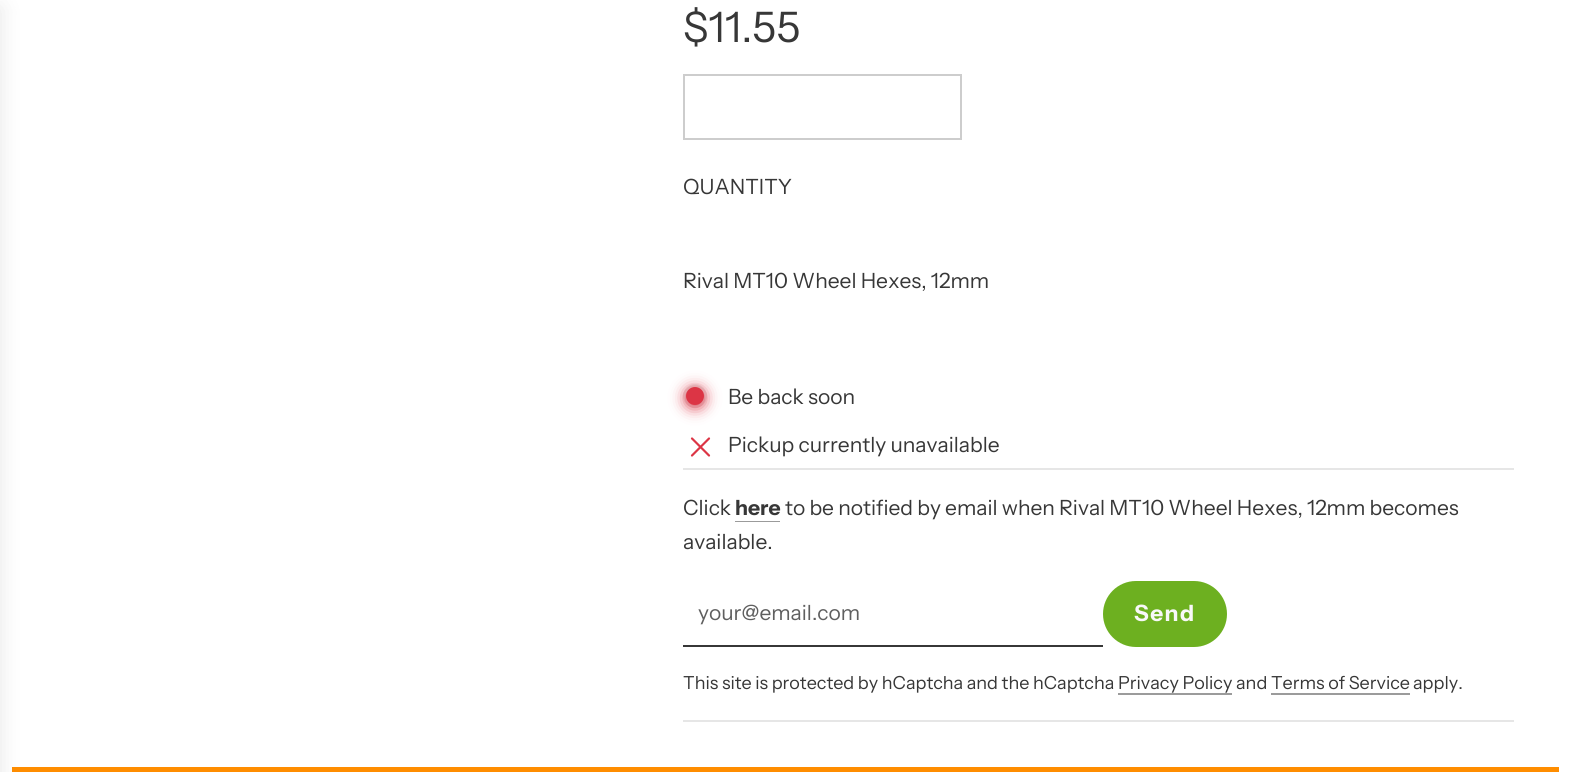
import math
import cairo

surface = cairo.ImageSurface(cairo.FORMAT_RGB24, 1570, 772)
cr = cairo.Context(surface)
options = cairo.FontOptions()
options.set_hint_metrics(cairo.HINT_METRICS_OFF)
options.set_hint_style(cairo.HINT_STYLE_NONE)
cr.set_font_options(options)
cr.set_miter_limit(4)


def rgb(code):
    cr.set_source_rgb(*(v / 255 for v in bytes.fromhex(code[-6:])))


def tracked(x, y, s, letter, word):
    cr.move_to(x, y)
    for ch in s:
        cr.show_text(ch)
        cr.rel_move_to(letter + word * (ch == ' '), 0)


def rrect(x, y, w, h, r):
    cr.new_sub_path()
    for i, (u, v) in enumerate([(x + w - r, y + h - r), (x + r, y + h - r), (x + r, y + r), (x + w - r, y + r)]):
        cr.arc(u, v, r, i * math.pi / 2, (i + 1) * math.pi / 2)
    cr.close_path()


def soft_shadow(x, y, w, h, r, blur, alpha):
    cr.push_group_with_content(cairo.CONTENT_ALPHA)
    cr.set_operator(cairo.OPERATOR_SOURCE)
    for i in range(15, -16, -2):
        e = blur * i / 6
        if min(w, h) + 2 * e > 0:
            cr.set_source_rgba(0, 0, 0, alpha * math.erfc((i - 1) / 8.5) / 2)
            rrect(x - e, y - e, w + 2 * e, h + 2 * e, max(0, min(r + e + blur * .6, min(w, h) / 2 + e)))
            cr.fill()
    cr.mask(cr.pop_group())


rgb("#ffffff")
cr.paint()
rgb("#ff8d00")
cr.rectangle(12, 767, 1547, 5)
cr.fill()
rgb("#000000")
soft_shadow(-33, 8, 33, 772, 0, 11, 0.1)
cr.rectangle(684, 75, 277, 64)
rgb("#cdcdcd")
cr.stroke()
rgb("#ebebeb")
cr.arc(695, 396, 12, 0, 2 * math.pi)
cr.fill()
rgb("#dc3545")
soft_shadow(686, 389, 18, 18, 9, 7.5, 1)
rgb("#dc3545")
cr.arc(695, 396, 9, 0, 2 * math.pi)
cr.fill()
cr.new_path()
cr.move_to(709, 438.5)
cr.line_to(692, 455.5)
cr.move_to(692, 438.5)
cr.line_to(709, 455.5)
cr.set_line_width(2.2)
cr.set_line_cap(cairo.LINE_CAP_ROUND)
cr.set_line_join(cairo.LINE_JOIN_ROUND)
cr.stroke()
for x, y, w, h, color in [
    (683, 468, 831, 2, "#e6e6e6"),
    (683, 720, 831, 2, "#e6e6e6"),
    (735, 521, 45, 1, "#9b9b9b"),
    (683, 645, 420, 2, "#373737"),
]:
    rgb(color)
    cr.rectangle(x, y, w, h)
    cr.fill()
rgb("#6db020")
rrect(1103, 581, 124, 66, 33)
cr.fill()
rgb("#9b9b9b")
cr.rectangle(1118, 693, 114, 2)
cr.fill()
cr.rectangle(1271, 693, 139, 2)
cr.fill()
cr.select_font_face("Instrument Sans")
cr.set_font_size(42)
rgb("#373737")
cr.move_to(683, 42)
cr.show_text("$11.55")
cr.set_font_size(21)
for x, y, s in [
    (683, 194, "QUANTITY"),
    (683, 288, "Rival MT10 Wheel Hexes, 12mm"),
    (728, 404, "Be back soon"),
    (728, 452, "Pickup currently unavailable"),
    (683, 515, "Click"),
]:
    cr.move_to(x, y)
    cr.show_text(s)
cr.select_font_face("Instrument Sans", cairo.FONT_SLANT_NORMAL, cairo.FONT_WEIGHT_BOLD)
cr.move_to(735, 515)
cr.show_text("here")
cr.select_font_face("Instrument Sans")
cr.move_to(785, 515)
cr.show_text("to be notified by email when Rival MT10 Wheel Hexes, 12mm becomes")
cr.move_to(683, 549)
cr.show_text("available.")
rgb("#5f5f5f")
cr.move_to(698, 620)
cr.show_text("your@email.com")
cr.select_font_face("Instrument Sans", cairo.FONT_SLANT_NORMAL, cairo.FONT_WEIGHT_BOLD)
cr.set_font_size(22.5)
rgb("#f8f8f8")
tracked(1134, 621, "Send", 1.5, 0)
cr.select_font_face("Instrument Sans")
cr.set_font_size(18)
rgb("#373737")
for x, y, s in [
    (683, 689, "This site is protected by hCaptcha and the hCaptcha Privacy Policy"),
    (1236, 689, "and Terms of Service"),
    (1413, 689, "apply."),
]:
    cr.move_to(x, y)
    cr.show_text(s)
surface.write_to_png("page.png")
